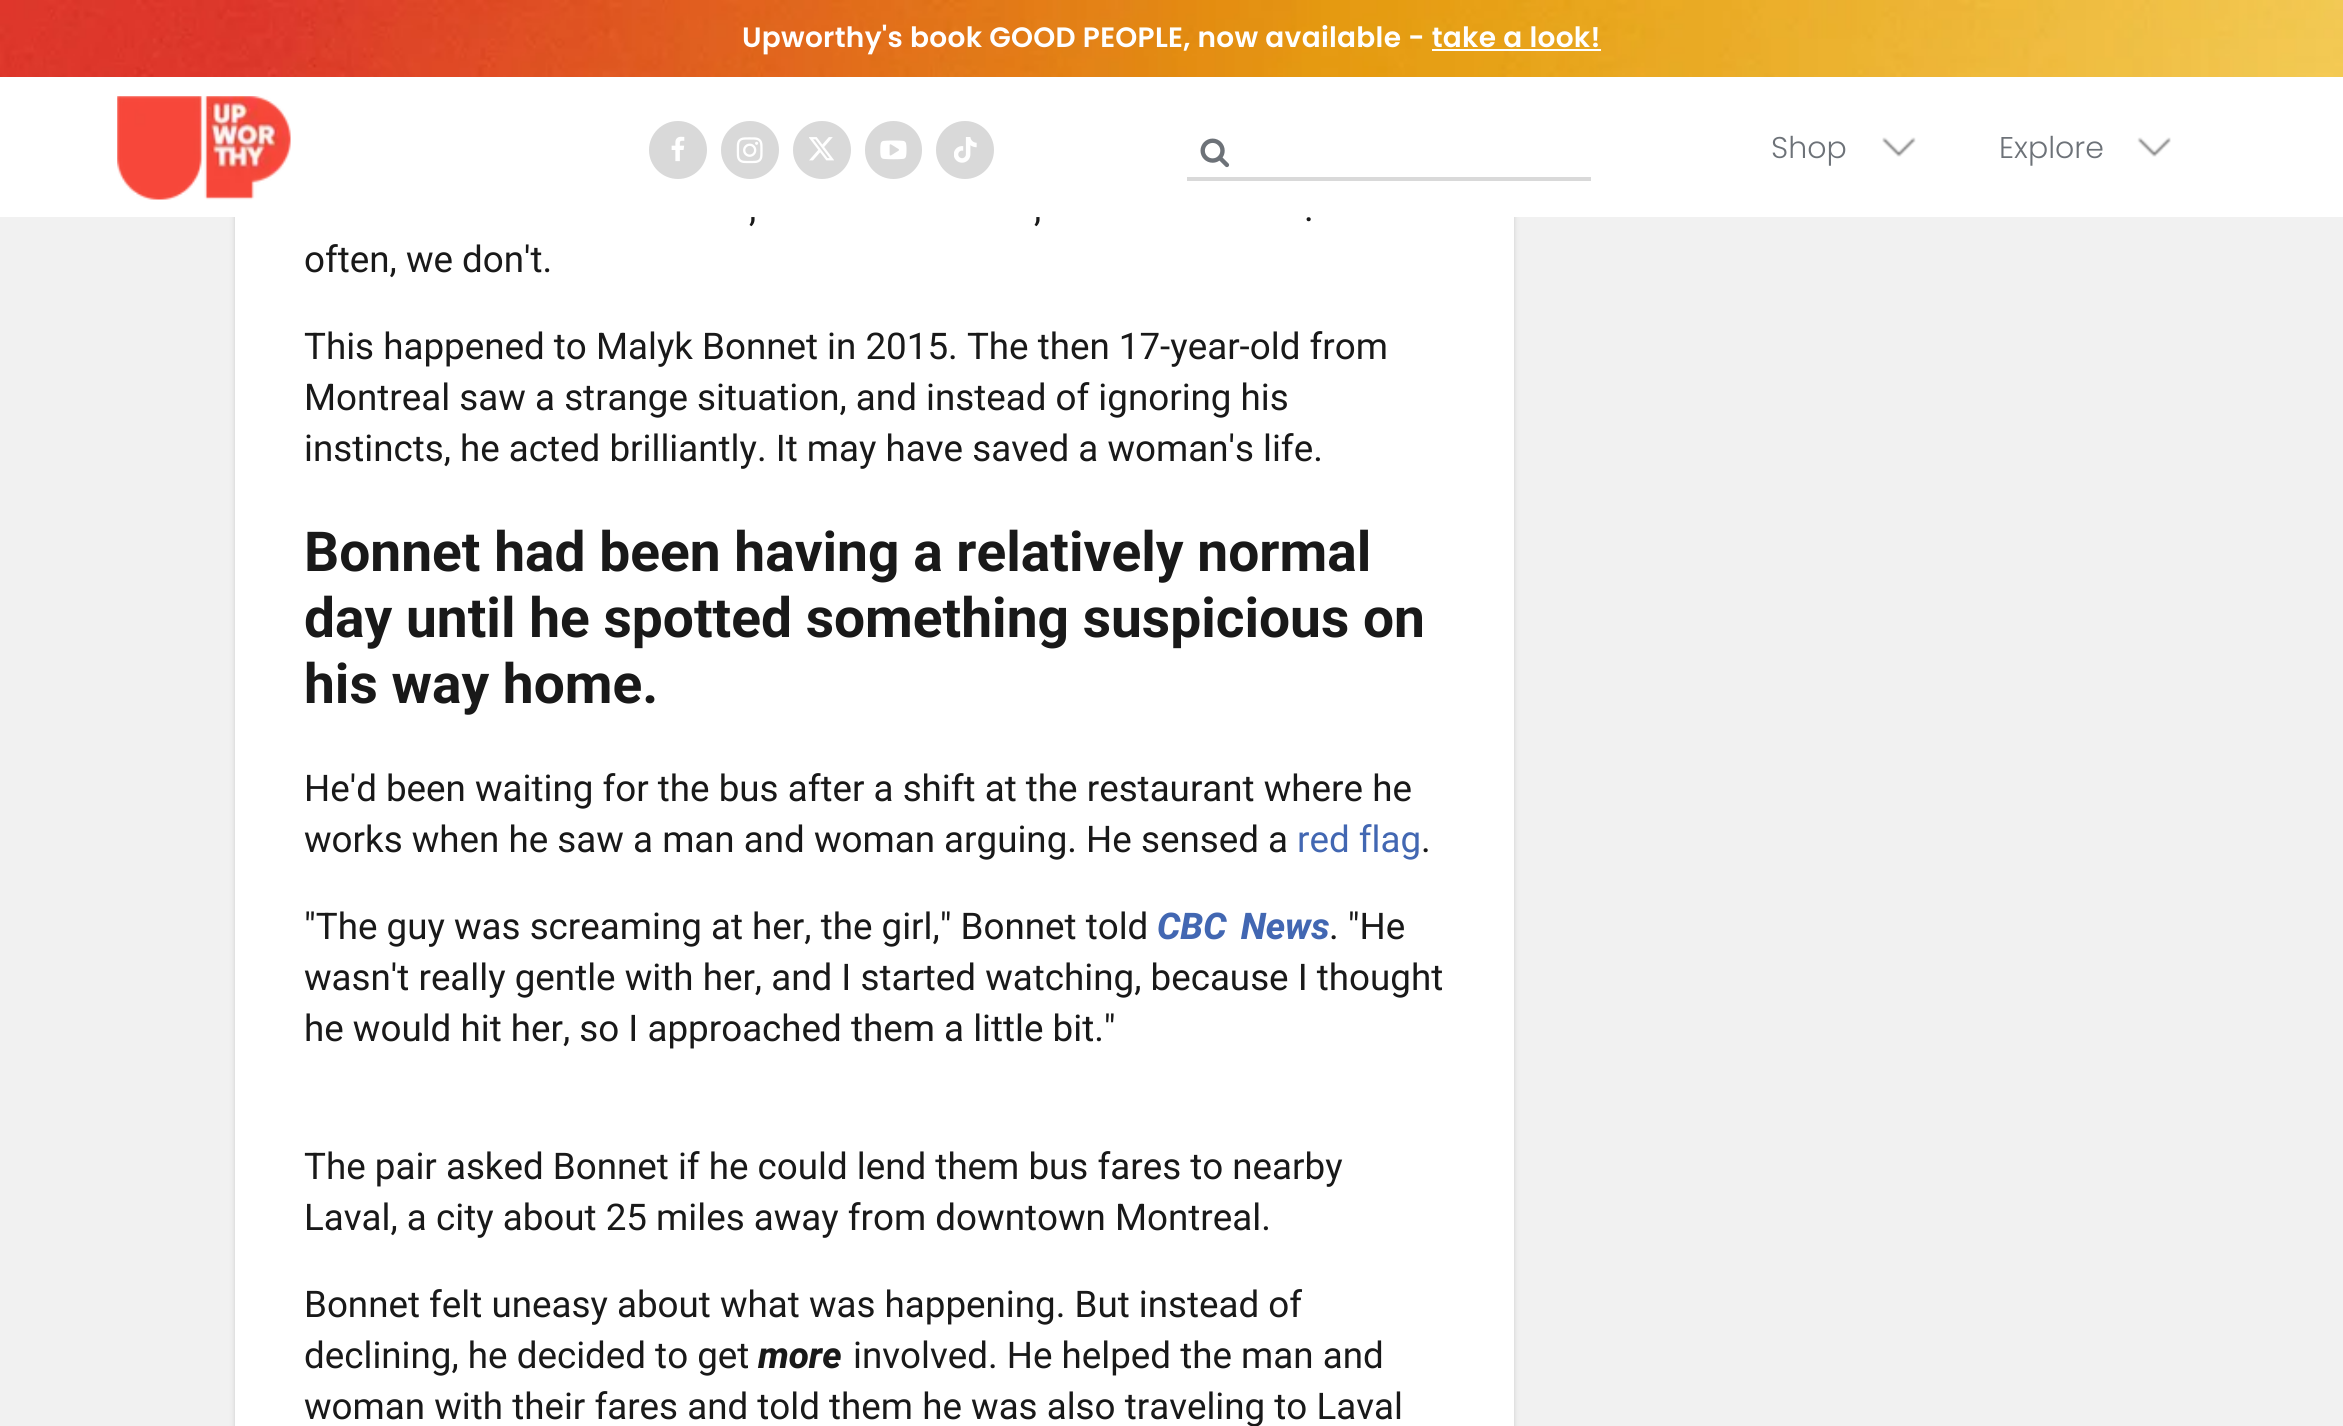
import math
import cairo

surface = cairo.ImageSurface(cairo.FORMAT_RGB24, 2343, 1426)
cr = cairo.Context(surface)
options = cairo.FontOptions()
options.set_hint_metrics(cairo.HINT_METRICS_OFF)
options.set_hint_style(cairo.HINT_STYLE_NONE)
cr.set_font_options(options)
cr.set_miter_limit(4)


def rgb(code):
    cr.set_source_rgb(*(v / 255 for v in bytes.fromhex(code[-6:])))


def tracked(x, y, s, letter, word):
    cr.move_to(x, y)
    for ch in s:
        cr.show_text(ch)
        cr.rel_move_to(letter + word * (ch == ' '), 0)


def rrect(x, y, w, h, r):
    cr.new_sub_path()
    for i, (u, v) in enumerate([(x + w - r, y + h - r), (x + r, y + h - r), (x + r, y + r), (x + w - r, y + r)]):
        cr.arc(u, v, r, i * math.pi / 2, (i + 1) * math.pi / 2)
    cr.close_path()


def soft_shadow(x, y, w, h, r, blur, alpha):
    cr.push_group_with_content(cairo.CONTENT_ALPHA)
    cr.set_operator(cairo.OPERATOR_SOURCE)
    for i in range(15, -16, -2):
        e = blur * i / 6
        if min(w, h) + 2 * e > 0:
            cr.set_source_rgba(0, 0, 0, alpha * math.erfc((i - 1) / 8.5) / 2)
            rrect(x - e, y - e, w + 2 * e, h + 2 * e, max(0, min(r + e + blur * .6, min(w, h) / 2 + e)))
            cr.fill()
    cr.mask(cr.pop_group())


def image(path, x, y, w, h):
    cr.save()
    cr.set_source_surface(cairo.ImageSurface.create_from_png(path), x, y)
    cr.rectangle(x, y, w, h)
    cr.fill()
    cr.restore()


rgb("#f1f1f1")
cr.paint()
rgb("#cccccc")
soft_shadow(235, -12, 1279, 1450, 4, 2.5, 1)
image("img/1.png", 0, 0, 2343, 77)
rgb("#ffffff")
cr.rectangle(1432, 49, 169, 2)
cr.fill()
cr.rectangle(0, 77, 2343, 140)
cr.fill()
image("img/2.png", 117, 96, 174, 104)
rgb("#d9d9d9")
cr.arc(678, 150, 29, 0, 2 * math.pi)
cr.fill()
image("img/3.png", 671, 136, 14, 26)
cr.arc(750, 150, 29, 0, 2 * math.pi)
cr.fill()
image("img/4.png", 736, 137, 27, 27)
cr.arc(822, 150, 29, 0, 2 * math.pi)
cr.fill()
image("img/5.png", 809, 137, 25, 24)
rrect(865, 121, 57, 58, 28.5)
cr.fill()
image("img/6.png", 880, 140, 27, 20)
cr.arc(965, 150, 29, 0, 2 * math.pi)
cr.fill()
image("img/7.png", 954, 137, 23, 26)
image("img/8.png", 1200, 138, 30, 30)
cr.rectangle(1187, 177, 404, 4)
cr.fill()
image("img/9.png", 1882, 137, 34, 20)
image("img/10.png", 2137, 137, 34, 20)
rgb("#ffffff")
cr.rectangle(235, 217, 1279, 1209)
cr.fill()
cr.select_font_face("Poppins SemiBold")
cr.set_font_size(28)
tracked(742, 47, "Upworthy's book GOOD PEOPLE, now available - take a look!", 0.28, 0)
cr.select_font_face("Poppins Light")
cr.set_font_size(30)
rgb("#6d7278")
cr.move_to(1771, 158)
cr.show_text("Shop")
cr.move_to(1999, 158)
cr.show_text("Explore")
cr.select_font_face("Roboto")
cr.set_font_size(36.75)
rgb("#191919")
for x, y, s in [
    (749, 221, ","),
    (1034, 221, ","),
    (1304, 221, "."),
    (304, 272, "often, we don't."),
    (304, 359, "This happened to Malyk Bonnet in 2015. The then 17-year-old from"),
    (304, 410, "Montreal saw a strange situation, and instead of ignoring his"),
    (304, 461, "instincts, he acted brilliantly. It may have saved a woman's life."),
]:
    cr.move_to(x, y)
    cr.show_text(s)
cr.select_font_face("Roboto", cairo.FONT_SLANT_NORMAL, cairo.FONT_WEIGHT_BOLD)
cr.set_font_size(55.1)
for x, y, s in [
    (304, 571, "Bonnet had been having a relatively normal"),
    (304, 637, "day until he spotted something suspicious on"),
    (304, 703, "his way home."),
]:
    cr.move_to(x, y)
    cr.show_text(s)
cr.select_font_face("Roboto")
cr.set_font_size(36.75)
cr.move_to(304, 801)
cr.show_text("He'd been waiting for the bus after a shift at the restaurant where he")
cr.move_to(304, 852)
cr.show_text("works when he saw a man and woman arguing. He sensed a")
rgb("#4267b2")
cr.move_to(1297, 852)
cr.show_text("red flag")
rgb("#191919")
cr.move_to(1421, 852)
cr.show_text(".")
cr.move_to(304, 939)
cr.show_text("\"The guy was screaming at her, the girl,\" Bonnet told")
cr.select_font_face("Roboto ExtraBold", cairo.FONT_SLANT_ITALIC)
rgb("#4267b2")
tracked(1157, 939, "CBC News", 0, 5)
cr.select_font_face("Roboto")
rgb("#191919")
for x, y, s in [
    (1329, 939, ". \"He"),
    (304, 990, "wasn't really gentle with her, and I started watching, because I thought"),
    (304, 1041, "he would hit her, so I approached them a little bit.\""),
    (304, 1179, "The pair asked Bonnet if he could lend them bus fares to nearby"),
    (304, 1230, "Laval, a city about 25 miles away from downtown Montreal."),
    (304, 1317, "Bonnet felt uneasy about what was happening. But instead of"),
    (304, 1368, "declining, he decided to get"),
]:
    cr.move_to(x, y)
    cr.show_text(s)
cr.select_font_face("Roboto ExtraBold", cairo.FONT_SLANT_ITALIC)
cr.move_to(758, 1368)
cr.show_text("more")
cr.select_font_face("Roboto")
cr.move_to(853, 1368)
cr.show_text("involved. He helped the man and")
cr.move_to(304, 1419)
cr.show_text("woman with their fares and told them he was also traveling to Laval")
surface.write_to_png("page.png")
